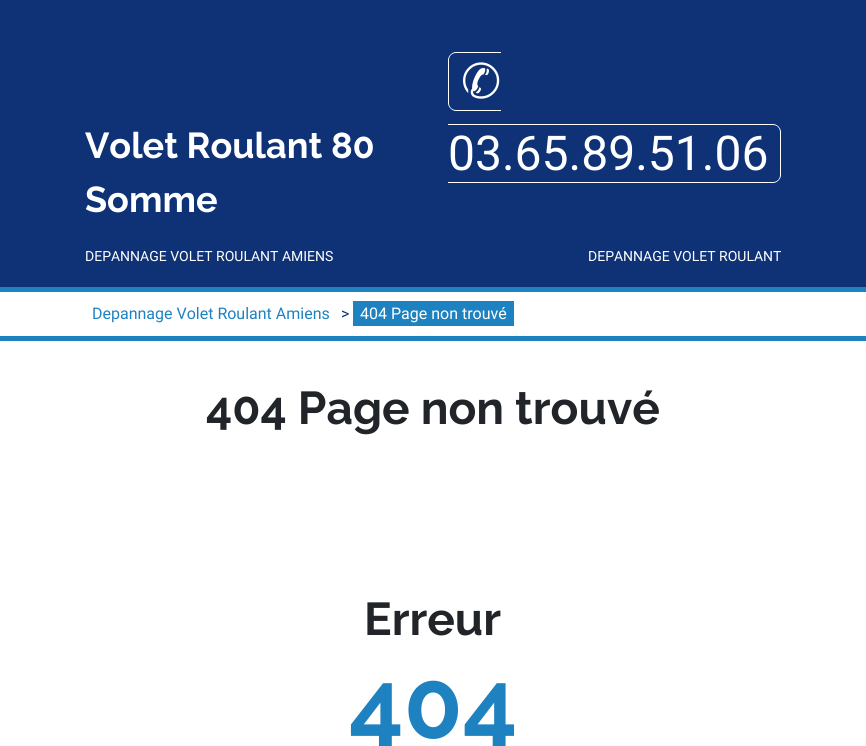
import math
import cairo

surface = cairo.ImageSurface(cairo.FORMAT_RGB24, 866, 746)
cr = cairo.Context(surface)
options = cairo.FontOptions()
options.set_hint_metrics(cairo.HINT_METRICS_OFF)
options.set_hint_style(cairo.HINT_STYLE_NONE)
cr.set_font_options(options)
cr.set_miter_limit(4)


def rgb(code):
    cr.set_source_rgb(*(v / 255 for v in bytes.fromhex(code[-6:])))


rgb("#ffffff")
cr.paint()
rgb("#0f3277")
cr.rectangle(0, 0, 866, 287)
cr.fill()
rgb("#ffffff")
cr.set_fill_rule(cairo.FILL_RULE_EVEN_ODD)
cr.new_path()
cr.move_to(456, 52)
cr.line_to(501, 52)
cr.line_to(501, 111)
cr.line_to(456, 111)
cr.curve_to(452, 111, 448, 107, 448, 103)
cr.line_to(448, 60)
cr.curve_to(448, 56, 452, 52, 456, 52)
cr.close_path()
cr.move_to(456, 53)
cr.line_to(501, 53)
cr.line_to(501, 110)
cr.line_to(456, 110)
cr.curve_to(452, 110, 449, 107, 449, 103)
cr.line_to(449, 60)
cr.curve_to(449, 56, 452, 53, 456, 53)
cr.close_path()
cr.fill()
cr.new_path()
cr.move_to(448, 124)
cr.line_to(773, 124)
cr.curve_to(777, 124, 781, 128, 781, 132)
cr.line_to(781, 175)
cr.curve_to(781, 179, 777, 183, 773, 183)
cr.line_to(448, 183)
cr.close_path()
cr.move_to(448, 125)
cr.line_to(773, 125)
cr.curve_to(777, 125, 780, 128, 780, 132)
cr.line_to(780, 175)
cr.curve_to(780, 179, 777, 182, 773, 182)
cr.line_to(448, 182)
cr.close_path()
cr.fill()
for x, y, w, h, color in [
    (0, 287, 866, 5, "#1f82c0"),
    (0, 336, 866, 5, "#1f82c0"),
    (353, 301, 161, 25, "#1f82c0"),
]:
    rgb(color)
    cr.rectangle(x, y, w, h)
    cr.fill()
cr.select_font_face("Raleway", cairo.FONT_SLANT_NORMAL, cairo.FONT_WEIGHT_BOLD)
cr.set_font_size(36)
rgb("#ffffff")
cr.move_to(85, 158)
cr.show_text("Volet Roulant 80")
cr.move_to(85, 212)
cr.show_text("Somme")
cr.select_font_face("DejaVu Sans")
cr.set_font_size(48)
cr.move_to(461, 98)
cr.show_text("✆")
cr.select_font_face("Roboto")
cr.move_to(448, 170)
cr.show_text("03.65.89.51.06")
cr.set_font_size(14)
cr.move_to(85, 261)
cr.show_text("DEPANNAGE VOLET ROULANT AMIENS")
cr.move_to(588, 261)
cr.show_text("DEPANNAGE VOLET ROULANT")
cr.set_font_size(16)
rgb("#1f82c0")
cr.move_to(92, 319)
cr.show_text("Depannage Volet Roulant Amiens")
rgb("#0f3277")
cr.move_to(341, 319)
cr.show_text(">")
rgb("#ffffff")
cr.move_to(360, 319)
cr.show_text("404 Page non trouvé")
cr.select_font_face("Raleway", cairo.FONT_SLANT_NORMAL, cairo.FONT_WEIGHT_BOLD)
cr.set_font_size(46)
rgb("#212529")
cr.move_to(206, 424)
cr.show_text("404 Page non trouvé")
cr.move_to(364, 635)
cr.show_text("Erreur")
cr.set_font_size(96)
rgb("#1f82c0")
cr.move_to(349, 738)
cr.show_text("404")
surface.write_to_png("page.png")
